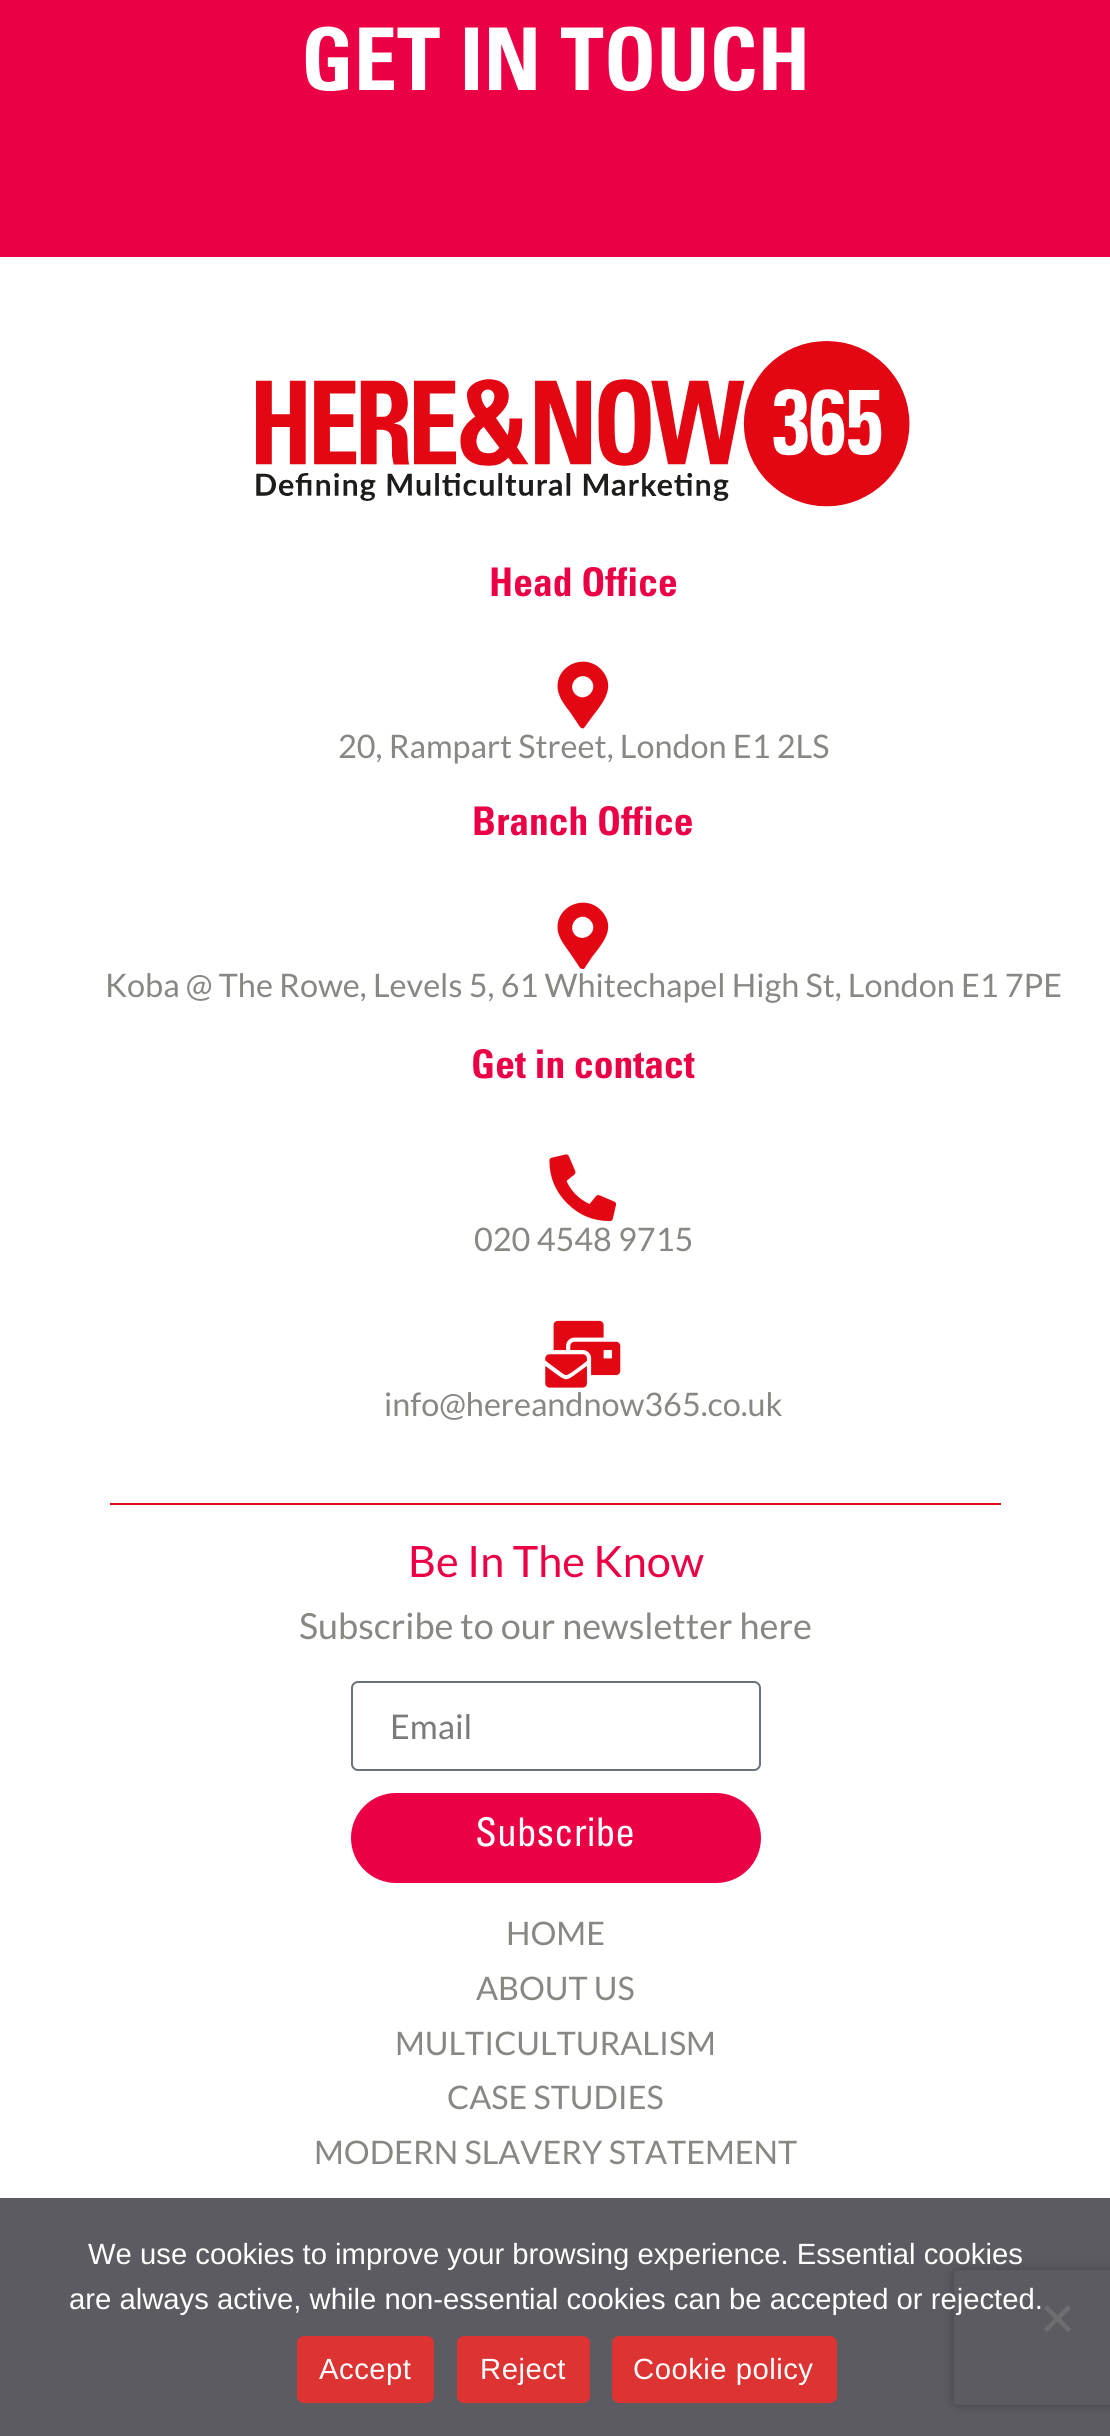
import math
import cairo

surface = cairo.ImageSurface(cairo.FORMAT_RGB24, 1110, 2436)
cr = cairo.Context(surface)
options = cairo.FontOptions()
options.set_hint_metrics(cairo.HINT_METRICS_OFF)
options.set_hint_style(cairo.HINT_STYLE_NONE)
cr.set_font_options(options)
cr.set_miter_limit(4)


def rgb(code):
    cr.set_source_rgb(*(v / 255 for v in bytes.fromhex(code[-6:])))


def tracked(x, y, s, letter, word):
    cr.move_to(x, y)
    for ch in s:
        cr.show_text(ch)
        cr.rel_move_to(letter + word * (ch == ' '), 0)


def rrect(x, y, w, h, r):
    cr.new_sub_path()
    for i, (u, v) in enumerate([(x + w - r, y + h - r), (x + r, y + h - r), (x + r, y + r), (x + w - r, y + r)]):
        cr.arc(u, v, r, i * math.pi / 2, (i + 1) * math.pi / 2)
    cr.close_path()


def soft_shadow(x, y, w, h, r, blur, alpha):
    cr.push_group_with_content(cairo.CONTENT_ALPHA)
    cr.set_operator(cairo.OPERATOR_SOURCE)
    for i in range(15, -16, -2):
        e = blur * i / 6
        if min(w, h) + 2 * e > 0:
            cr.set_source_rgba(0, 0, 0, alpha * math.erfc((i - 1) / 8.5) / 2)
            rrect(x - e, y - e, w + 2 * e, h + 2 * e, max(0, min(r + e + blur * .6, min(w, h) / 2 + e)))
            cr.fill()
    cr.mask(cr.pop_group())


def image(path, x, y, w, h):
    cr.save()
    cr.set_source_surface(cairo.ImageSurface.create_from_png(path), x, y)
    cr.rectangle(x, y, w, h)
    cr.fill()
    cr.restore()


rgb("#ffffff")
cr.paint()
rgb("#eb0045")
cr.rectangle(0, 0, 1110, 257)
cr.fill()
image("img/1.png", 256, 341, 654, 166)
rgb("#e30613")
cr.new_path()
cr.move_to(580, 727)
cr.line_to(570, 712)
cr.curve_to(565, 706, 560, 699, 558, 691)
cr.curve_to(553, 665, 588, 650, 604, 673)
cr.curve_to(615, 689, 602, 704, 592, 717)
cr.line_to(584, 728)
cr.curve_to(583, 729, 581, 728, 580, 727)
cr.close_path()
cr.move_to(575, 694)
cr.curve_to(585, 704, 600, 689, 590, 679)
cr.curve_to(580, 670, 566, 684, 575, 694)
cr.close_path()
cr.fill()
cr.new_path()
cr.move_to(580, 968)
cr.line_to(570, 953)
cr.curve_to(565, 946, 560, 940, 558, 932)
cr.curve_to(553, 906, 588, 891, 604, 914)
cr.curve_to(615, 930, 602, 944, 592, 957)
cr.line_to(584, 969)
cr.curve_to(583, 969, 581, 969, 580, 968)
cr.close_path()
cr.move_to(575, 935)
cr.curve_to(585, 944, 600, 930, 590, 920)
cr.curve_to(580, 910, 566, 925, 575, 935)
cr.close_path()
cr.fill()
image("img/2.png", 549, 1154, 68, 68)
image("img/3.png", 545, 1320, 76, 68)
rgb("#e10b17")
cr.rectangle(110, 1503, 891, 2)
cr.fill()
rrect(352, 1682, 408, 88, 6)
rgb("#69727d")
cr.stroke()
rgb("#eb0045")
rrect(351, 1793, 410, 90, 45)
cr.fill()
cr.save()
cr.set_fill_rule(cairo.FILL_RULE_EVEN_ODD)
cr.new_path()
cr.move_to(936, 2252)
cr.line_to(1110, 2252)
cr.line_to(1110, 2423)
cr.line_to(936, 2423)
cr.close_path()
cr.move_to(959, 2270)
cr.line_to(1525, 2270)
cr.curve_to(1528, 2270, 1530, 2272, 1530, 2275)
cr.line_to(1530, 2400)
cr.curve_to(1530, 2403, 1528, 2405, 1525, 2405)
cr.line_to(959, 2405)
cr.curve_to(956, 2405, 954, 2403, 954, 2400)
cr.line_to(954, 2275)
cr.curve_to(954, 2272, 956, 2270, 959, 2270)
cr.close_path()
cr.clip()
rgb("#808080")
soft_shadow(954, 2270, 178, 135, 5, 5.5, 1)
cr.restore()
cr.set_source_rgba(0.196, 0.196, 0.227, 0.8)
cr.rectangle(0, 2198, 1110, 238)
cr.fill()
rgb("#6e6e71")
cr.new_path()
cr.move_to(1068, 2305)
cr.line_to(1071, 2308.5)
cr.line_to(1047, 2332)
cr.line_to(1044, 2329)
cr.close_path()
cr.fill()
cr.new_path()
cr.move_to(1044, 2308.5)
cr.line_to(1047, 2305)
cr.line_to(1071, 2329)
cr.line_to(1068, 2332)
cr.close_path()
cr.fill()
rgb("#dd3333")
rrect(297, 2336, 137, 67, 7)
cr.fill()
rrect(457, 2336, 133, 67, 7)
cr.fill()
rrect(612, 2336, 225, 67, 7)
cr.fill()
cr.select_font_face("Univers", cairo.FONT_SLANT_NORMAL, cairo.FONT_WEIGHT_BOLD)
cr.set_font_size(86.5)
rgb("#ffffff")
cr.move_to(301, 90)
cr.show_text("GET IN TOUCH")
cr.set_font_size(39.5)
rgb("#eb0045")
cr.move_to(489, 596)
cr.show_text("Head Office")
cr.select_font_face("Lato")
cr.set_font_size(32.4)
rgb("#878783")
cr.move_to(338, 758)
cr.show_text("20, Rampart Street, London E1 2LS")
cr.select_font_face("Univers", cairo.FONT_SLANT_NORMAL, cairo.FONT_WEIGHT_BOLD)
cr.set_font_size(39.5)
rgb("#eb0045")
cr.move_to(472, 835)
cr.show_text("Branch Office")
cr.select_font_face("Lato")
cr.set_font_size(32.4)
rgb("#878783")
cr.move_to(105, 997)
cr.show_text("Koba @ The Rowe, Levels 5, 61 Whitechapel High St, London E1 7PE")
cr.select_font_face("Univers", cairo.FONT_SLANT_NORMAL, cairo.FONT_WEIGHT_BOLD)
cr.set_font_size(39.5)
rgb("#eb0045")
cr.move_to(471, 1078)
cr.show_text("Get in contact")
cr.select_font_face("Lato")
cr.set_font_size(32.4)
rgb("#878783")
cr.move_to(474, 1251)
cr.show_text("020 4548 9715")
cr.move_to(384, 1416)
cr.show_text("info@hereandnow365.co.uk")
cr.set_font_size(43.25)
rgb("#eb0045")
cr.move_to(408, 1577)
cr.show_text("Be In The Know")
cr.set_font_size(36)
rgb("#878783")
cr.move_to(299, 1639)
cr.show_text("Subscribe to our newsletter here")
cr.set_font_size(34)
rgb("#797a7c")
cr.move_to(390, 1739)
cr.show_text("Email")
cr.select_font_face("Univers")
cr.set_font_size(39.5)
rgb("#ffffff")
cr.move_to(475, 1846)
cr.show_text("Subscribe")
cr.select_font_face("Lato")
cr.set_font_size(32.4)
rgb("#878783")
for x, y, s in [
    (506, 1945, "HOME"),
    (476, 2000, "ABOUT US"),
    (395, 2055, "MULTICULTURALISM"),
    (447, 2109, "CASE STUDIES"),
    (314, 2164, "MODERN SLAVERY STATEMENT"),
]:
    cr.move_to(x, y)
    cr.show_text(s)
cr.select_font_face("Liberation Sans")
cr.set_font_size(29.25)
rgb("#ffffff")
cr.move_to(88, 2264)
cr.show_text("We use cookies to improve your browsing experience. Essential cookies")
cr.move_to(69, 2309)
cr.show_text("are always active, while non-essential cookies can be accepted or rejected.")
for x, y, s in [
    (319, 2379, "Accept"),
    (480, 2379, "Reject"),
    (633, 2379, "Cookie policy"),
]:
    tracked(x, y, s, 0.5, 0)
surface.write_to_png("page.png")
